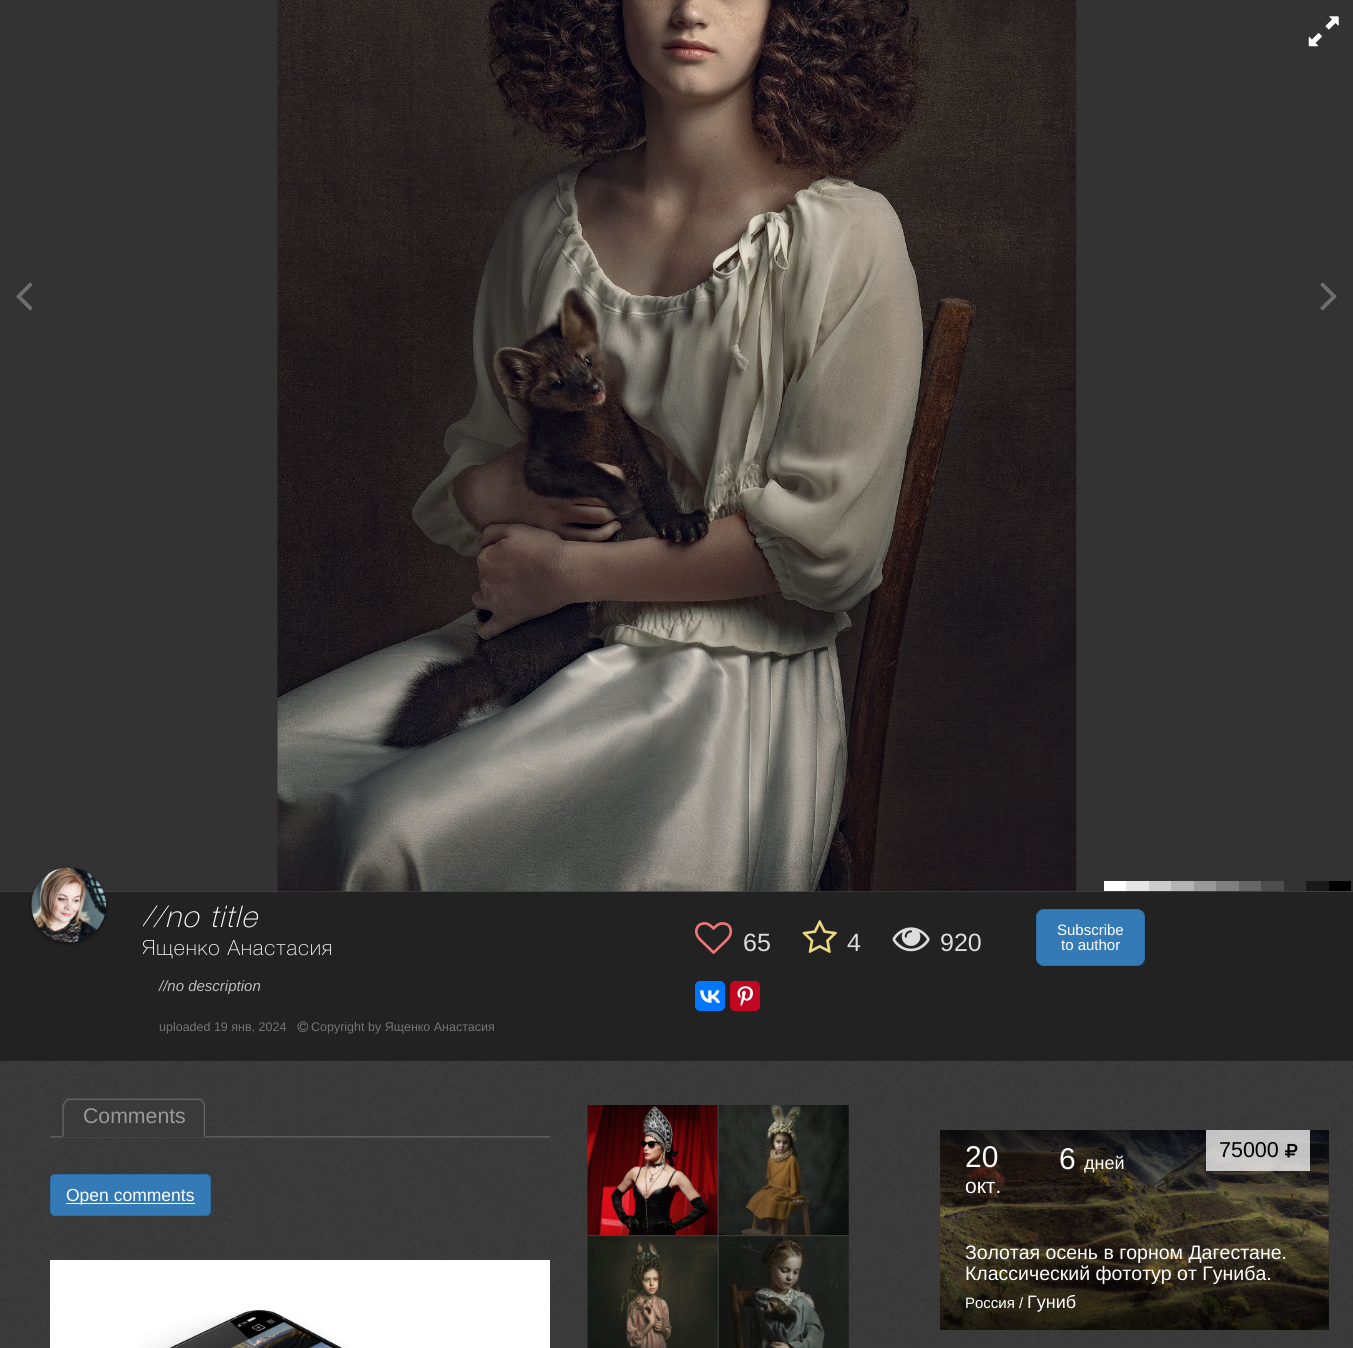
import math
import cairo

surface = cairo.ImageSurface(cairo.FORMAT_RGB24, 1353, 1348)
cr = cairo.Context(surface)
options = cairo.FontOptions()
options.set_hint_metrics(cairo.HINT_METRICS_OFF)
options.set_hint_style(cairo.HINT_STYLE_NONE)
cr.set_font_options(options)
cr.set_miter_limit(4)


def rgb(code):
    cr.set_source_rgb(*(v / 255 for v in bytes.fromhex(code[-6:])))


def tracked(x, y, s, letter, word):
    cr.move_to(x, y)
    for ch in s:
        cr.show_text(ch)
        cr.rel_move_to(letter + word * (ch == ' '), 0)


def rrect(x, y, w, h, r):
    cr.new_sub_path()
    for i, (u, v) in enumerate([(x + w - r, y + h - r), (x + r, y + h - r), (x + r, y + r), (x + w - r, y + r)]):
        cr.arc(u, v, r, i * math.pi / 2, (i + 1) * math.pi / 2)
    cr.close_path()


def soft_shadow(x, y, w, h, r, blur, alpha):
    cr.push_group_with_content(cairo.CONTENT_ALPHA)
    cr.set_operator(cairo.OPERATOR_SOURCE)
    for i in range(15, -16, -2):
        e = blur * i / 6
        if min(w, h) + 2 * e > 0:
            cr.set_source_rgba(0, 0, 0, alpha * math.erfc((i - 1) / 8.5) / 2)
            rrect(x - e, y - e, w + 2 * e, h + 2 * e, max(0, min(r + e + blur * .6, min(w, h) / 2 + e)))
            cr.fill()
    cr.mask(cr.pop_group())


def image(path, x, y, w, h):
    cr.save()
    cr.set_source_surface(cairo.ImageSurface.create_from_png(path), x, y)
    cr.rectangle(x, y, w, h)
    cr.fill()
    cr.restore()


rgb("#3a3a3a")
cr.paint()
image("img/1.png", 0, 1061, 1353, 284)
rgb("#333333")
cr.rectangle(0, 0, 1353, 891)
cr.fill()
image("img/2.png", 16, 282, 17, 29)
rgb("#3f3f3f")
cr.rectangle(0, 891, 1353, 1)
cr.fill()
image("img/3.png", 277, 0, 800, 892)
image("img/4.png", 1320, 282, 17, 29)
image("img/5.png", 1308, 16, 31, 31)
for x, y, w, h, color in [
    (1104, 881, 22, 10, "#ffffff"),
    (1126, 881, 23, 10, "#e5e5e5"),
    (1149, 881, 22, 10, "#cccccc"),
    (1171, 881, 23, 10, "#b3b3b3"),
    (1194, 881, 22, 10, "#999999"),
    (1216, 881, 23, 10, "#808080"),
    (1239, 881, 22, 10, "#666666"),
    (1261, 881, 23, 10, "#4d4d4d"),
    (1306, 881, 23, 10, "#1a1a1a"),
    (1329, 881, 22, 10, "#000000"),
    (0, 892, 1353, 169, "#222222"),
]:
    rgb(color)
    cr.rectangle(x, y, w, h)
    cr.fill()
rgb("#000000")
soft_shadow(31, 869, 75, 75, 37.5, 2, 0.5)
image("img/6.png", 31, 867, 76, 76)
image("img/7.png", 297, 1021, 12, 12)
image("img/8.png", 695, 922, 38, 32)
image("img/9.png", 802, 920, 35, 33)
image("img/10.png", 892, 927, 38, 25)
rgb("#0077ff")
rrect(695, 981, 30, 30, 5)
cr.fill()
image("img/11.png", 700, 990, 20, 13)
rgb("#c20724")
rrect(730, 981, 30, 30, 5)
cr.fill()
image("img/12.png", 737, 986, 16, 21)
rgb("#337ab7")
rrect(1036.5, 909.5, 108, 56, 7.5)
cr.fill_preserve()
rgb("#2e6da4")
cr.set_line_width(1)
cr.stroke()
image("img/13.png", 50, 1136, 500, 2)
image("img/14.png", 62, 1098, 143, 40)
rgb("#3a3a3a")
cr.rectangle(203, 1136, 2, 1)
cr.fill()
image("img/15.png", 62, 1098, 137, 39)
rgb("#337ab7")
rrect(50.5, 1174.5, 160, 41, 4.5)
cr.fill_preserve()
rgb("#2e6da4")
cr.stroke()
rgb("#ffffff")
cr.rectangle(66, 1203, 129, 1)
cr.fill()
cr.rectangle(50, 1260, 500, 88)
cr.fill()
image("img/16.png", 137, 1310, 211, 38)
image("img/17.png", 587, 1105, 131, 130)
image("img/18.png", 718, 1105, 131, 130)
image("img/19.png", 587, 1236, 131, 112)
image("img/20.png", 718, 1236, 131, 112)
image("img/21.png", 940, 1130, 389, 200)
gradient = cairo.LinearGradient(1134, 1130, 1134, 1253)
gradient.add_color_stop_rgba(0, 0, 0, 0, 0.8)
gradient.add_color_stop_rgba(1, 0, 0, 0, 0)
cr.set_source(gradient)
cr.rectangle(940, 1130, 389, 120)
cr.fill()
cr.set_source_rgba(1, 1, 1, 0.75)
cr.rectangle(1206, 1130, 104, 41)
cr.fill()
image("img/22.png", 1285, 1143, 13, 15)
gradient = cairo.LinearGradient(1134, 1330, 1134, 1191)
gradient.add_color_stop_rgba(0, 0, 0, 0, 0.8)
gradient.add_color_stop_rgba(1, 0, 0, 0, 0)
cr.set_source(gradient)
cr.rectangle(940, 1195, 389, 135)
cr.fill()
cr.save()
cr.rectangle(143, 904, 490, 32)
cr.clip()
cr.select_font_face("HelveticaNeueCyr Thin", cairo.FONT_SLANT_ITALIC)
cr.set_font_size(30)
rgb("#ffffff")
tracked(142, 927, "//no title", 1.5, 0)
cr.restore()
cr.save()
cr.rectangle(143, 939, 191, 24)
cr.clip()
cr.select_font_face("HelveticaNeueCyr Thin")
cr.set_font_size(21)
rgb("#ffffff")
tracked(142, 955, "Ященко Анастасия", 1, 0)
cr.restore()
cr.select_font_face("Liberation Sans", cairo.FONT_SLANT_ITALIC)
cr.set_font_size(15)
rgb("#bbbbbb")
cr.move_to(159, 991)
cr.show_text("//no description")
cr.select_font_face("Liberation Sans")
cr.set_font_size(12.5)
rgb("#747474")
cr.move_to(159, 1031)
cr.show_text("uploaded 19 янв, 2024")
cr.move_to(311, 1031)
cr.show_text("Copyright by Ященко Анастасия")
cr.set_font_size(25)
rgb("#dddddd")
for x, y, s in [
    (743, 951, "65"),
    (847, 951, "4"),
    (940, 951, "920"),
]:
    cr.move_to(x, y)
    cr.show_text(s)
cr.set_font_size(15)
rgb("#ffffff")
cr.move_to(1057, 935)
cr.show_text("Subscribe")
cr.move_to(1061, 950)
cr.show_text("to author")
cr.set_font_size(21.25)
rgb("#999999")
cr.move_to(83, 1123)
cr.show_text("Comments")
cr.set_font_size(17.5)
rgb("#ffffff")
cr.move_to(66, 1201)
cr.show_text("Open comments")
cr.set_font_size(30)
cr.move_to(965, 1167)
cr.show_text("20")
cr.set_font_size(21)
cr.move_to(965, 1193)
cr.show_text("окт.")
cr.set_font_size(30)
cr.move_to(1059, 1169)
cr.show_text("6")
cr.set_font_size(18)
cr.move_to(1084, 1169)
cr.show_text("дней")
cr.set_font_size(21.5)
rgb("#000000")
cr.move_to(1219, 1157)
cr.show_text("75000")
cr.set_font_size(19.5)
rgb("#ffffff")
cr.move_to(965, 1259)
cr.show_text("Золотая осень в горном Дагестане.")
cr.move_to(965, 1280)
cr.show_text("Классический фототур от Гуниба.")
cr.set_font_size(15)
cr.move_to(965, 1308)
cr.show_text("Россия /")
cr.set_font_size(18)
cr.move_to(1027, 1308)
cr.show_text("Гуниб")
surface.write_to_png("page.png")
